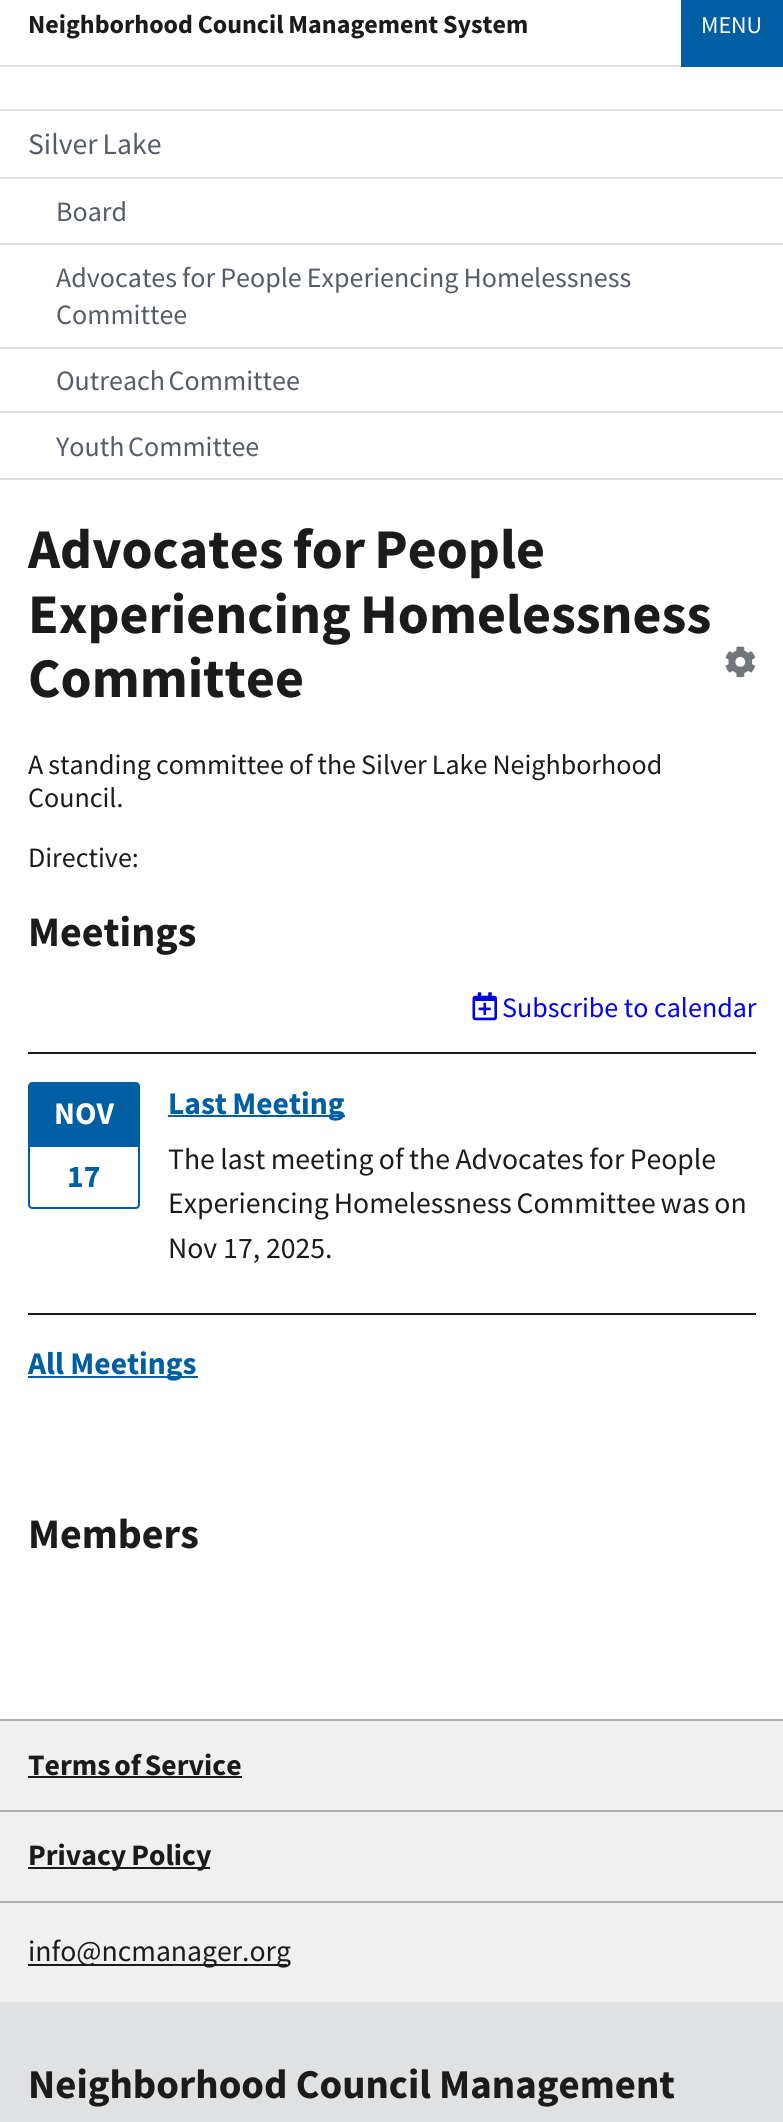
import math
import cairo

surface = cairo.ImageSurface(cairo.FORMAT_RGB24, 783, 2122)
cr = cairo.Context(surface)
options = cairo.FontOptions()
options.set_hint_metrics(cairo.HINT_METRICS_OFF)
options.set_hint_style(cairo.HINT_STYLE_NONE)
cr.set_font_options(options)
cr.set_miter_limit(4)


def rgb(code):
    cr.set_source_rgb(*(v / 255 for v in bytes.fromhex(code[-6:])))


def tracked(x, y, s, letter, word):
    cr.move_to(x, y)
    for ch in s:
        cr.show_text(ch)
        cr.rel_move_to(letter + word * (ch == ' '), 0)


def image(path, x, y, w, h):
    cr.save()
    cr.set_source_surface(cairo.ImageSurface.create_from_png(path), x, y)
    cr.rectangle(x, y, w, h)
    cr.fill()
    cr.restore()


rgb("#ffffff")
cr.paint()
for x, y, w, h, color in [
    (0, 65, 681, 2, "#dfe1e2"),
    (681, 0, 102, 67, "#005ea2"),
    (0, 478, 783, 2, "#dfe1e2"),
    (0, 109, 783, 2, "#dfe1e2"),
    (0, 177, 783, 2, "#dfe1e2"),
    (0, 243, 783, 2, "#dfe1e2"),
    (0, 347, 783, 2, "#dfe1e2"),
    (0, 411, 783, 2, "#dfe1e2"),
]:
    rgb(color)
    cr.rectangle(x, y, w, h)
    cr.fill()
image("img/1.png", 725, 646, 30, 32)
image("img/2.png", 472, 992, 25, 29)
rgb("#1b1b1b")
cr.rectangle(28, 1052, 728, 2)
cr.fill()
rgb("#005ea2")
cr.new_path()
cr.move_to(32, 1082)
cr.line_to(136, 1082)
cr.curve_to(138, 1082, 140, 1084, 140, 1086)
cr.line_to(140, 1145)
cr.line_to(28, 1145)
cr.line_to(28, 1086)
cr.curve_to(28, 1084, 30, 1082, 32, 1082)
cr.close_path()
cr.fill()
cr.new_path()
cr.move_to(29, 1146)
cr.line_to(139, 1146)
cr.line_to(139, 1205)
cr.curve_to(139, 1206.5, 137.5, 1208, 136, 1208)
cr.line_to(32, 1208)
cr.curve_to(30.5, 1208, 29, 1206.5, 29, 1205)
cr.close_path()
cr.stroke()
for x, y, w, h, color in [
    (168, 1115, 177, 2, "#005ea2"),
    (28, 1313, 728, 2, "#1b1b1b"),
    (28, 1376, 170, 2, "#005ea2"),
    (0, 1721, 783, 281, "#f0f0f0"),
    (0, 1901, 783, 2, "#a9aeb1"),
    (0, 1719, 783, 2, "#a9aeb1"),
    (28, 1776, 214, 2, "#1b1b1b"),
    (0, 1810, 783, 2, "#a9aeb1"),
    (28, 1867, 182, 2, "#1b1b1b"),
    (28, 1964, 259, 2, "#1b1b1b"),
    (0, 2002, 783, 120, "#dfe1e2"),
]:
    rgb(color)
    cr.rectangle(x, y, w, h)
    cr.fill()
cr.select_font_face("Source Sans Pro", cairo.FONT_SLANT_NORMAL, cairo.FONT_WEIGHT_BOLD)
cr.set_font_size(26)
rgb("#1b1b1b")
tracked(28, 33, "Neighborhood Council Management System", 0, -0.5)
cr.select_font_face("Source Sans Pro")
cr.set_font_size(24)
rgb("#ffffff")
cr.move_to(701, 33)
cr.show_text("MENU")
cr.set_font_size(29.7)
rgb("#565c65")
tracked(28, 154, "Silver Lake", 0, -1)
cr.set_font_size(28)
cr.move_to(56, 221)
cr.show_text("Board")
tracked(56, 287, "Advocates for People Experiencing Homelessness", 0, -0.5)
cr.move_to(56, 324)
cr.show_text("Committee")
tracked(56, 390, "Outreach Committee", 0, -2)
tracked(56, 456, "Youth Committee", 0, -2)
cr.select_font_face("Source Sans Pro", cairo.FONT_SLANT_NORMAL, cairo.FONT_WEIGHT_BOLD)
cr.set_font_size(56)
rgb("#1b1b1b")
tracked(28, 568, "Advocates for People", 0, -2)
tracked(28, 633, "Experiencing Homelessness", 0, -2)
cr.move_to(28, 697)
cr.show_text("Committee")
cr.select_font_face("Source Sans Pro")
cr.set_font_size(28)
tracked(28, 774, "A standing committee of the Silver Lake Neighborhood", 0, -0.5)
cr.move_to(28, 807)
cr.show_text("Council.")
cr.move_to(28, 867)
cr.show_text("Directive:")
cr.select_font_face("Source Sans Pro", cairo.FONT_SLANT_NORMAL, cairo.FONT_WEIGHT_BOLD)
cr.set_font_size(42)
cr.move_to(28, 946)
cr.show_text("Meetings")
cr.select_font_face("Source Sans Pro")
cr.set_font_size(28)
rgb("#0000ee")
cr.move_to(502, 1017)
cr.show_text("Subscribe to calendar")
cr.select_font_face("Source Sans Pro", cairo.FONT_SLANT_NORMAL, cairo.FONT_WEIGHT_BOLD)
cr.set_font_size(31.5)
rgb("#ffffff")
cr.move_to(54, 1124)
cr.show_text("NOV")
rgb("#005ea2")
cr.move_to(67, 1187)
cr.show_text("17")
tracked(168, 1114, "Last Meeting", 0, -1)
cr.select_font_face("Source Sans Pro")
cr.set_font_size(29.7)
rgb("#1b1b1b")
tracked(168, 1169, "The last meeting of the Advocates for People", 0, -0.5)
tracked(168, 1213, "Experiencing Homelessness Committee was on", 0, -1)
cr.move_to(168, 1258)
cr.show_text("Nov 17, 2025.")
cr.select_font_face("Source Sans Pro", cairo.FONT_SLANT_NORMAL, cairo.FONT_WEIGHT_BOLD)
cr.set_font_size(31.5)
rgb("#005ea2")
cr.move_to(28, 1374)
cr.show_text("All Meetings")
cr.set_font_size(42)
rgb("#1b1b1b")
cr.move_to(28, 1548)
cr.show_text("Members")
cr.set_font_size(29.7)
tracked(28, 1775, "Terms of Service", 0, -2)
tracked(28, 1865, "Privacy Policy", 0, -1)
cr.select_font_face("Source Sans Pro")
cr.move_to(28, 1961)
cr.show_text("info@ncmanager.org")
cr.select_font_face("Source Sans Pro", cairo.FONT_SLANT_NORMAL, cairo.FONT_WEIGHT_BOLD)
cr.set_font_size(40.9)
cr.move_to(28, 2098)
cr.show_text("Neighborhood Council Management")
surface.write_to_png("page.png")
